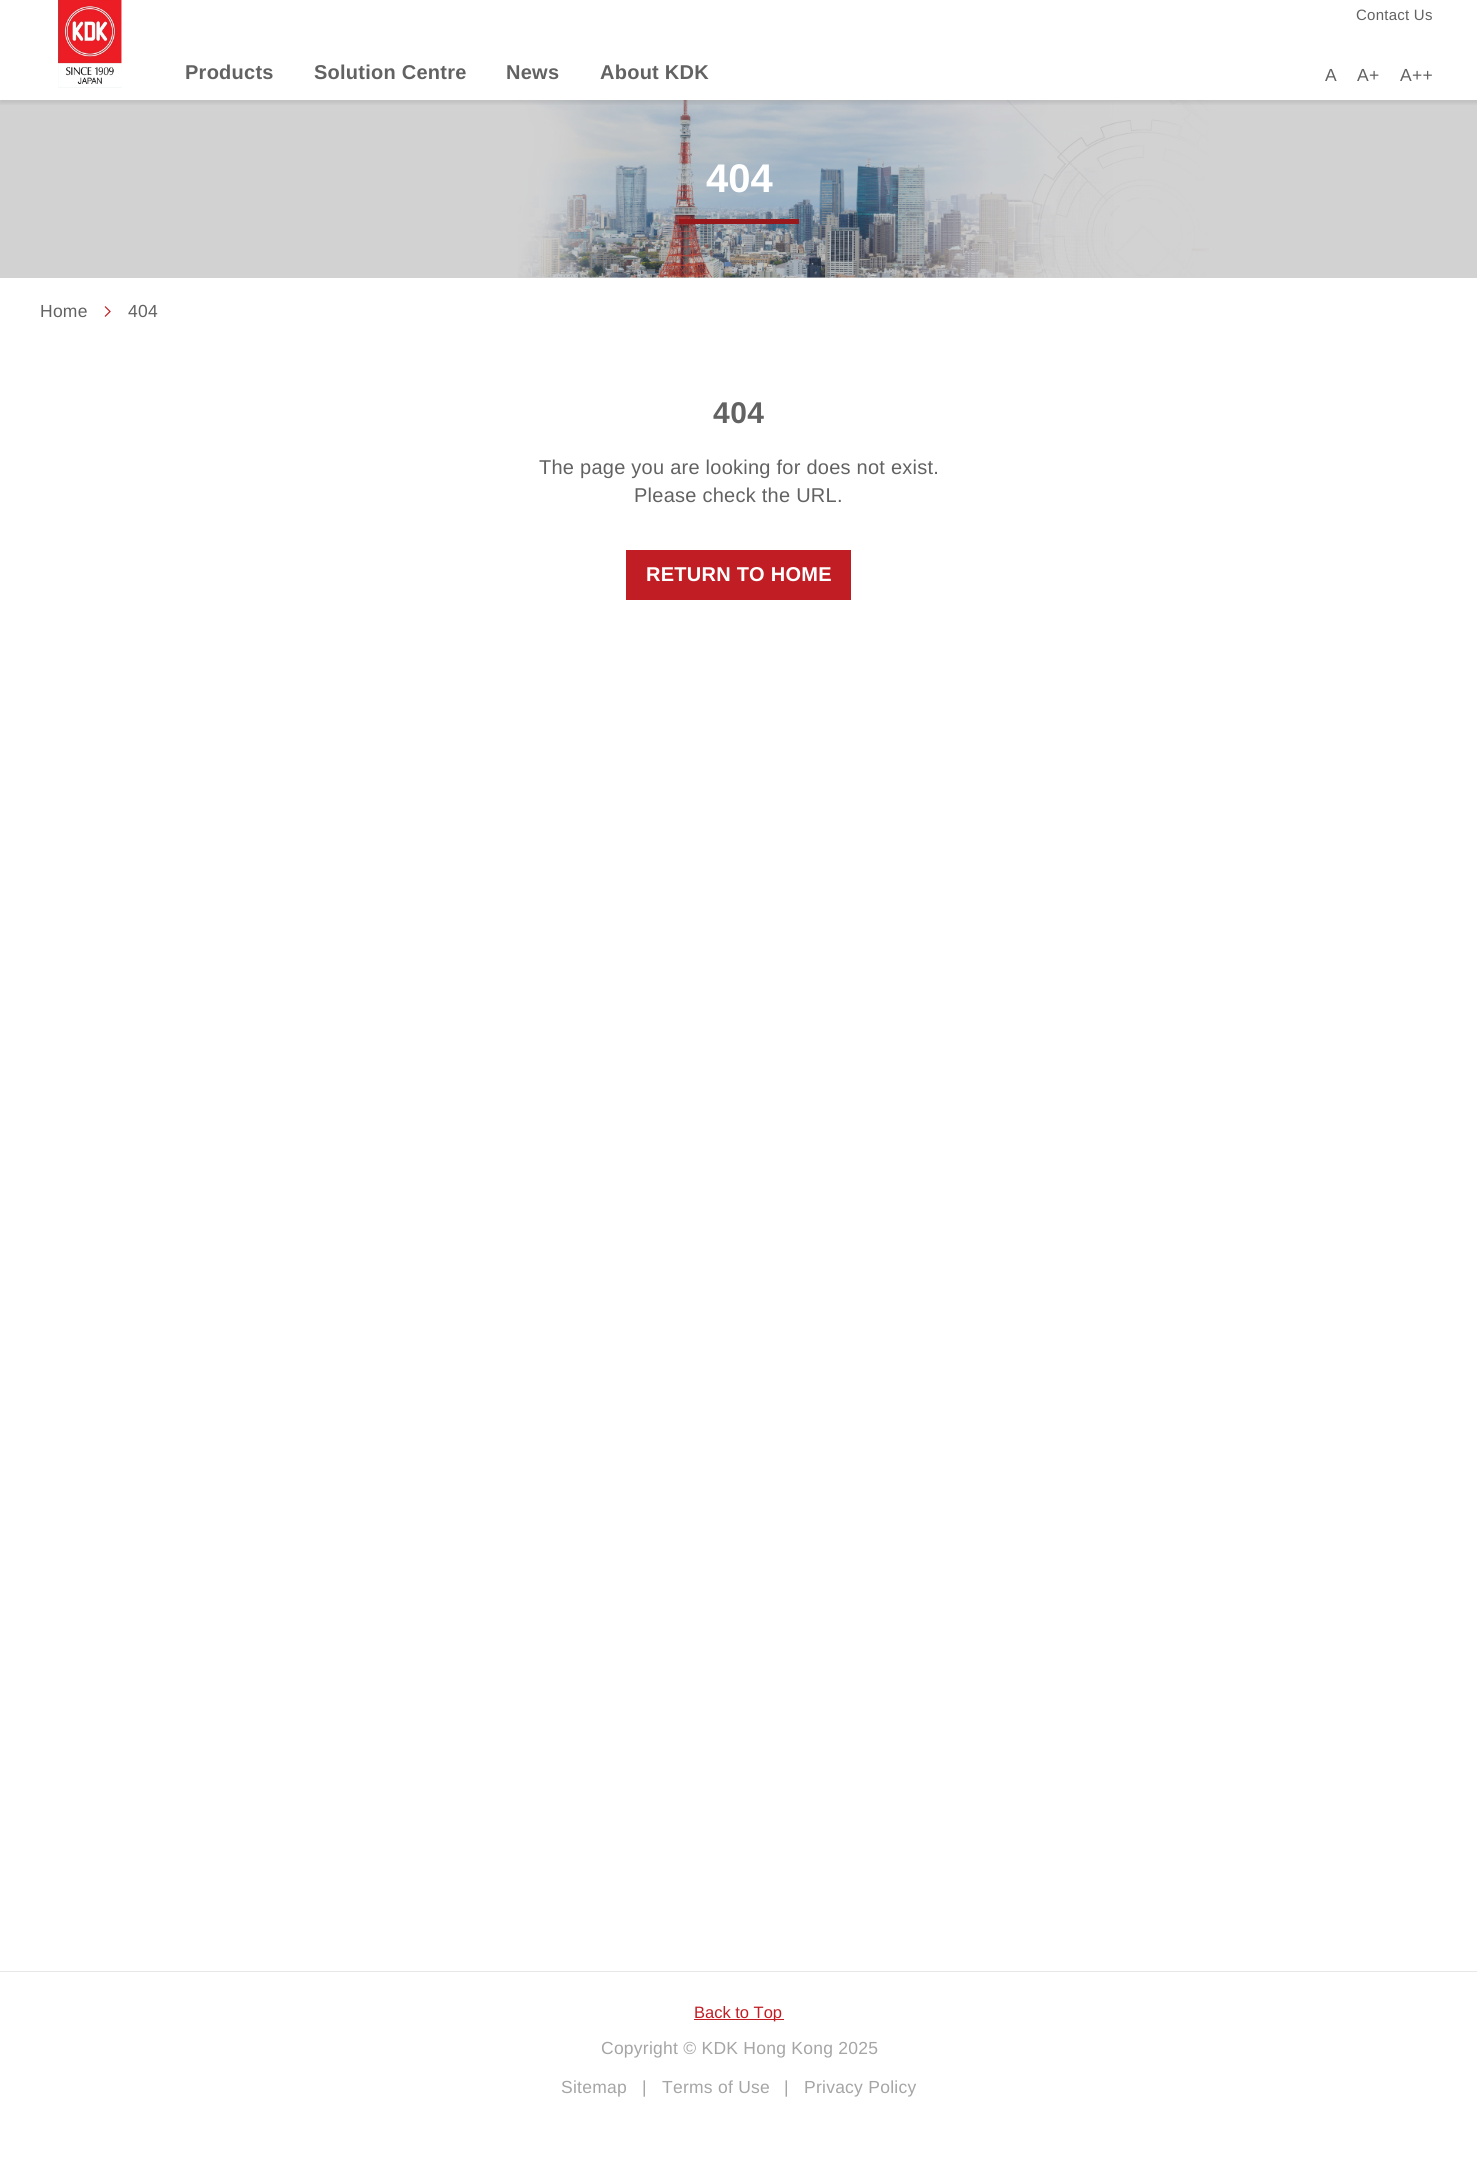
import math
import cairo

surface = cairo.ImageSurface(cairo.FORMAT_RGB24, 1477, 2160)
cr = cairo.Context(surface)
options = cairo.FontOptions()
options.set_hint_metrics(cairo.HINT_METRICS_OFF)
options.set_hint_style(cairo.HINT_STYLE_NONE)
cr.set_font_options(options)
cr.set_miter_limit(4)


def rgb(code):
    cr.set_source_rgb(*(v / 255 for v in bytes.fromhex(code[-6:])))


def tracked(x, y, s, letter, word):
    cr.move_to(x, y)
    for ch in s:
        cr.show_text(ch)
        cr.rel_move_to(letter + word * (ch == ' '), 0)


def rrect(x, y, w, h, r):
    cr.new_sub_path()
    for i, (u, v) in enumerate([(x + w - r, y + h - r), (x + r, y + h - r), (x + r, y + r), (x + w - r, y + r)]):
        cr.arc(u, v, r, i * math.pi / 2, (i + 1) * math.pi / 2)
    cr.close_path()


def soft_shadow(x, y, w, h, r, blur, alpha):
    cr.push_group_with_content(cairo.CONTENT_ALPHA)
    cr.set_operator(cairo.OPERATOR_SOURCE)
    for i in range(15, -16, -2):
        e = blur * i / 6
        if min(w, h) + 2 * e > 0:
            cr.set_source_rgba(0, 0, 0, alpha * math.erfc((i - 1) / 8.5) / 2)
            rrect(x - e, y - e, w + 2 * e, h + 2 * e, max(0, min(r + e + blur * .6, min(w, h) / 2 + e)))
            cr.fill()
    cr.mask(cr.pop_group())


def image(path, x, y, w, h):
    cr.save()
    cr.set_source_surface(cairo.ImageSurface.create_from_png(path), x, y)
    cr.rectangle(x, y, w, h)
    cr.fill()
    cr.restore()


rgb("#ffffff")
cr.paint()
rgb("#d2d2d2")
cr.rectangle(0, 100, 1477, 178)
cr.fill()
image("img/2.png", 518, 100, 691, 178)
cr.save()
cr.rectangle(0, 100, 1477, 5)
cr.clip()
rgb("#000000")
soft_shadow(0, 3, 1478, 100, 0, 2.5, 0.1)
cr.restore()
image("img/1.png", 58, 0, 64, 88)
rgb("#99181c")
cr.rectangle(679, 219, 120, 5)
cr.fill()
cr.new_path()
cr.move_to(105, 306.5)
cr.line_to(110, 311.5)
cr.line_to(105, 316.5)
rgb("#c01e24")
cr.set_line_width(1.2)
cr.stroke()
for x, y, w, h, color in [
    (626, 550, 225, 50, "#c01e24"),
    (0, 1971, 1477, 1, "#e8e8e8"),
    (694, 2019, 90, 1, "#c01e24"),
]:
    rgb(color)
    cr.rectangle(x, y, w, h)
    cr.fill()
cr.select_font_face("Liberation Sans", cairo.FONT_SLANT_NORMAL, cairo.FONT_WEIGHT_BOLD)
cr.set_font_size(20)
rgb("#626262")
for x, y, s in [
    (185, 79, "Products"),
    (314, 79, "Solution Centre"),
    (506, 79, "News"),
    (600, 79, "About KDK"),
]:
    tracked(x, y, s, 0.25, 0)
cr.select_font_face("Liberation Sans")
cr.set_font_size(15)
tracked(1356, 20, "Contact Us", 0.25, 0)
cr.set_font_size(17.5)
for x, y, s in [
    (1325, 81, "A"),
    (1357, 81, "A+"),
    (1400, 81, "A++"),
]:
    tracked(x, y, s, 0.25, 0)
cr.select_font_face("Liberation Sans", cairo.FONT_SLANT_NORMAL, cairo.FONT_WEIGHT_BOLD)
cr.set_font_size(40)
rgb("#ffffff")
cr.move_to(706, 192)
cr.show_text("404")
cr.select_font_face("Liberation Sans")
cr.set_font_size(17.5)
rgb("#626262")
tracked(40, 317, "Home", 0.25, 0)
tracked(128, 317, "404", 0.25, 0)
cr.select_font_face("Liberation Sans", cairo.FONT_SLANT_NORMAL, cairo.FONT_WEIGHT_BOLD)
cr.set_font_size(30)
tracked(713, 423, "404", 0.5, 0)
cr.select_font_face("Liberation Sans")
cr.set_font_size(20)
tracked(539, 474, "The page you are looking for does not exist.", 0.25, 0)
tracked(634, 502, "Please check the URL.", 0.25, 0)
cr.select_font_face("Liberation Sans", cairo.FONT_SLANT_NORMAL, cairo.FONT_WEIGHT_BOLD)
rgb("#ffffff")
tracked(646, 581, "RETURN TO HOME", 0.25, 0)
cr.select_font_face("Liberation Sans")
cr.set_font_size(16.5)
rgb("#c01e24")
cr.move_to(694, 2018)
cr.show_text("Back to Top")
cr.set_font_size(17.5)
rgb("#a5a5a5")
for x, y, s in [
    (601, 2054, "Copyright © KDK Hong Kong 2025"),
    (561, 2093, "Sitemap"),
    (642, 2093, "|"),
    (662, 2093, "Terms of Use"),
    (784, 2093, "|"),
    (804, 2093, "Privacy Policy"),
]:
    tracked(x, y, s, 0.25, 0)
surface.write_to_png("page.png")
